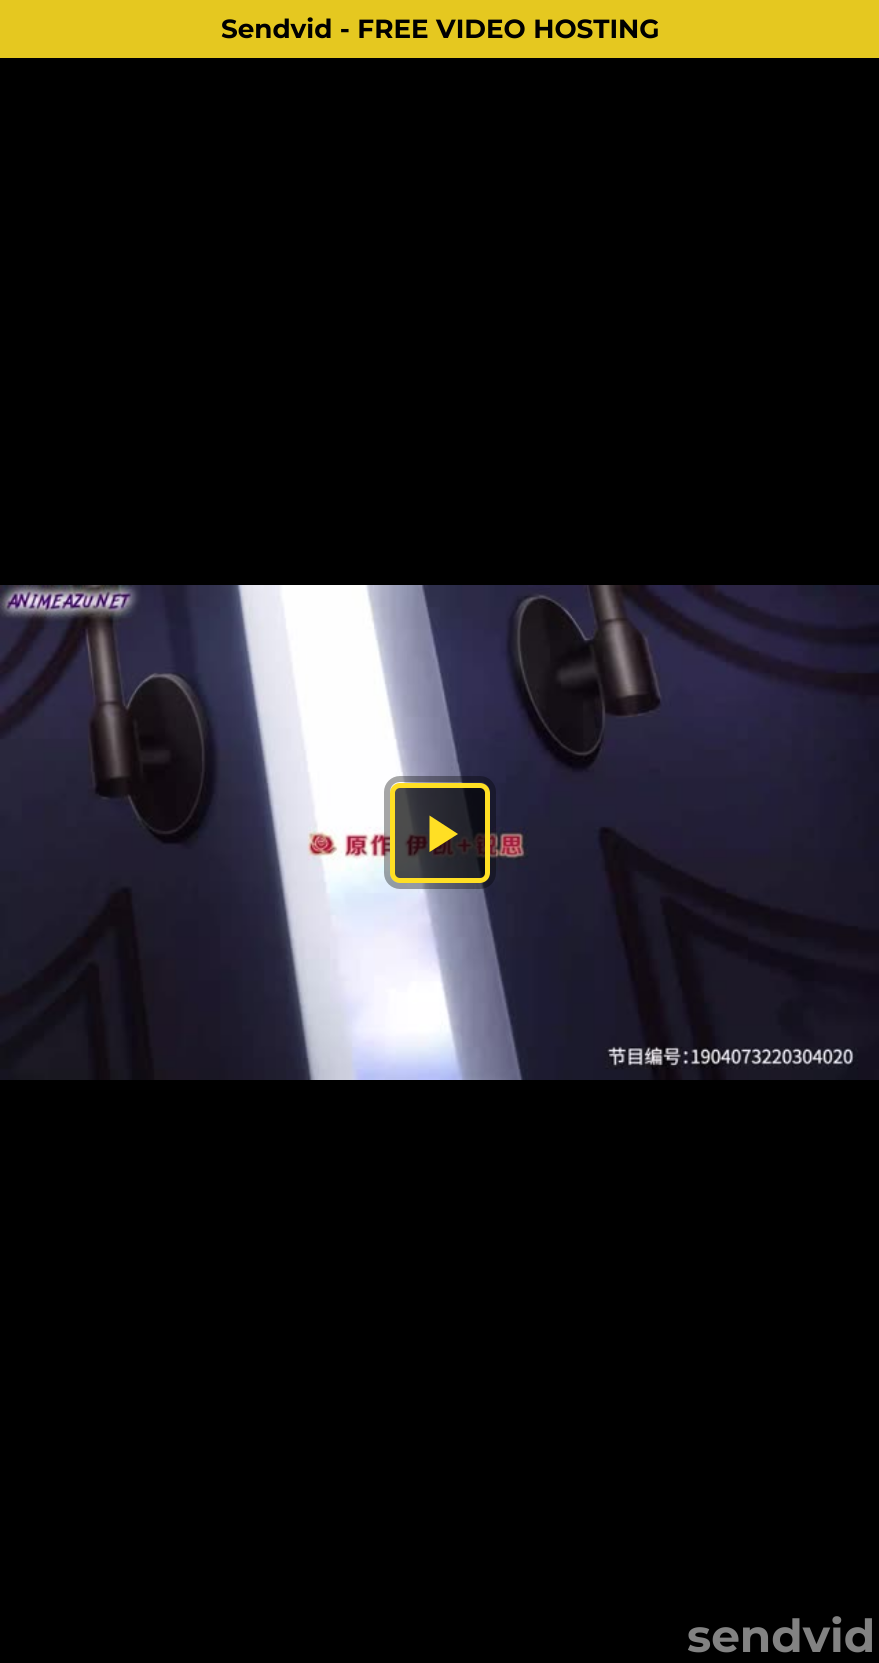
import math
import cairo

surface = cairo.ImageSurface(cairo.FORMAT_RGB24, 879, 1663)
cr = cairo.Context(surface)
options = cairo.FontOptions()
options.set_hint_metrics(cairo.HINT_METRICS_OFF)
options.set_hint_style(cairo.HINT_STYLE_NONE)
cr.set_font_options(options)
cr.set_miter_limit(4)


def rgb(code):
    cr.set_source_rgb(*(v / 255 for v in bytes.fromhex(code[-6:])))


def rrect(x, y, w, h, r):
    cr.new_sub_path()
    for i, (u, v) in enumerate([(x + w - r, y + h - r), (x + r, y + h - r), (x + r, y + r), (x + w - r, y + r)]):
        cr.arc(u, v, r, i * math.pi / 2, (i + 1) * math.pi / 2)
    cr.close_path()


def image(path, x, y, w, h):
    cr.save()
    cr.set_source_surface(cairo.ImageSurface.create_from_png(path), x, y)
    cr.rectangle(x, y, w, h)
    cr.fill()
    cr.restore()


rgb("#000000")
cr.paint()
rgb("#e5c820")
cr.rectangle(0, 0, 879, 58)
cr.fill()
image("img/1.png", 0, 585, 879, 495)
cr.set_source_rgba(0, 0, 0, 0.7)
rrect(392.5, 785.5, 95, 95, 7.5)
cr.fill_preserve()
rgb("#ffdf24")
cr.set_line_width(5)
cr.stroke()
rrect(387, 779, 106, 107, 13)
cr.set_source_rgba(0, 0, 0, 0.35)
cr.set_line_width(6)
cr.stroke()
rgb("#ffdf24")
cr.new_path()
cr.move_to(429.5, 815.5)
cr.line_to(429.5, 852)
cr.line_to(458, 834)
cr.close_path()
cr.fill()
cr.select_font_face("Montserrat", cairo.FONT_SLANT_NORMAL, cairo.FONT_WEIGHT_BOLD)
cr.set_font_size(26.25)
rgb("#000000")
cr.move_to(221, 38)
cr.show_text("Sendvid - FREE VIDEO HOSTING")
cr.set_font_size(45.5)
rgb("#828282")
cr.move_to(687, 1652)
cr.show_text("sendvid")
surface.write_to_png("page.png")
